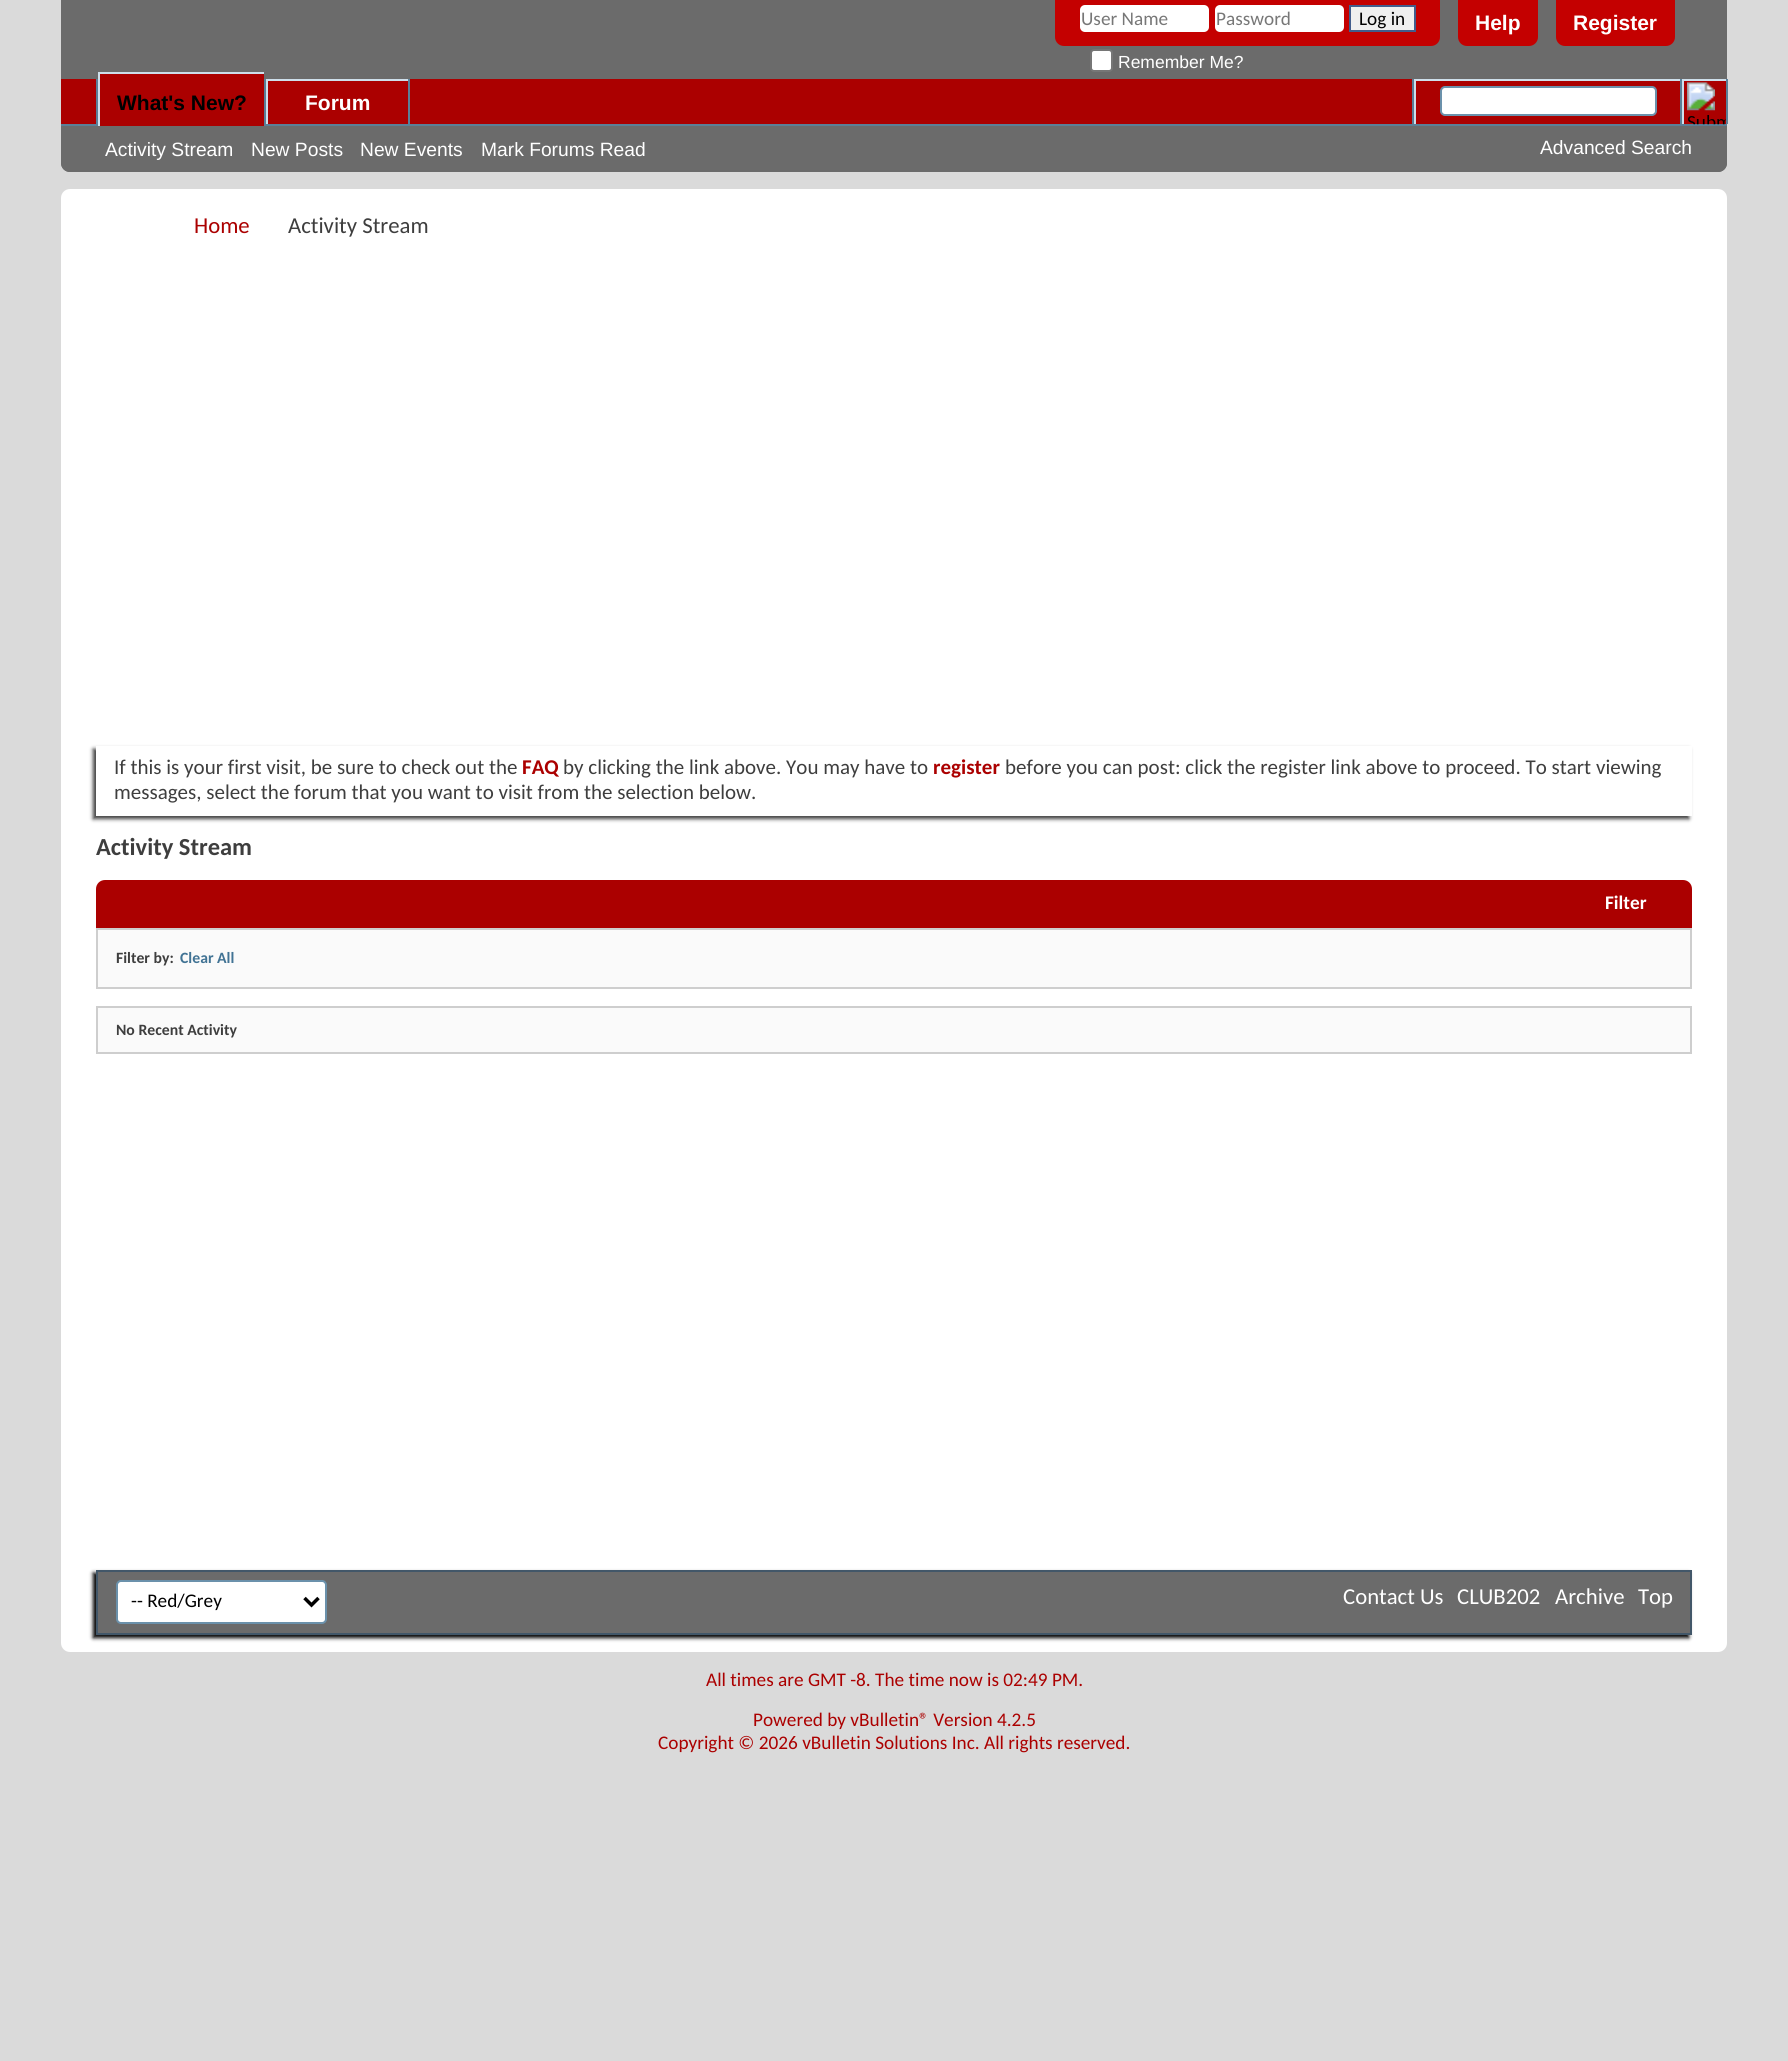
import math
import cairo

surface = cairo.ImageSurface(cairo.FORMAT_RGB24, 1788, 2061)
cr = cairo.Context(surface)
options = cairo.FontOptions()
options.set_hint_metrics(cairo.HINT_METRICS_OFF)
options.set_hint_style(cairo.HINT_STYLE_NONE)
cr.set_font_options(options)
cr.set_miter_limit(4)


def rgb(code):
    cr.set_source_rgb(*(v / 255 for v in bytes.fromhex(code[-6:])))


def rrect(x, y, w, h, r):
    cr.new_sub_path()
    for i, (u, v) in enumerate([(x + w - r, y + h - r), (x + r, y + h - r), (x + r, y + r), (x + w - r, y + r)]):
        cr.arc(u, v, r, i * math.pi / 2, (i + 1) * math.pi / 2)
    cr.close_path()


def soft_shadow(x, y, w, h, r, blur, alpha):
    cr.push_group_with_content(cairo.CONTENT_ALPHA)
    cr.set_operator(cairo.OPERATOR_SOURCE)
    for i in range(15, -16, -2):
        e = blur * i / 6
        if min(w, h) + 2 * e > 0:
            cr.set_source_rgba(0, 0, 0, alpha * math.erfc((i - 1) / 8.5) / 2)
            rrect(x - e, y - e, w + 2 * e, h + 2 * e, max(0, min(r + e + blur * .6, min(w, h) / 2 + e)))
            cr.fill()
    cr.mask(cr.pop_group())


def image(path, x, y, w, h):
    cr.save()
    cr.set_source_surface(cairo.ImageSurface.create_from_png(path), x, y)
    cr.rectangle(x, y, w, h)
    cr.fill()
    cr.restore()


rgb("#dadada")
cr.paint()
rgb("#6b6b6b")
cr.new_path()
cr.move_to(61, 0)
cr.line_to(1727, 0)
cr.line_to(1727, 163)
cr.curve_to(1727, 168, 1723, 172, 1718, 172)
cr.line_to(70, 172)
cr.curve_to(65, 172, 61, 168, 61, 163)
cr.close_path()
cr.fill()
rgb("#c40000")
cr.new_path()
cr.move_to(1055, 0)
cr.line_to(1440, 0)
cr.line_to(1440, 37)
cr.curve_to(1440, 42, 1436, 46, 1431, 46)
cr.line_to(1064, 46)
cr.curve_to(1059, 46, 1055, 42, 1055, 37)
cr.close_path()
cr.fill()
rgb("#ffffff")
rrect(1080, 5, 129, 27, 5)
cr.fill()
rrect(1215, 5, 129, 27, 5)
cr.fill()
rgb("#efefef")
cr.rectangle(1350, 6, 65, 25)
cr.fill_preserve()
rgb("#415d8d")
cr.stroke()
rgb("#ffffff")
rrect(1091, 50, 21, 21, 3)
cr.fill_preserve()
rgb("#767676")
cr.stroke()
rgb("#c40000")
cr.new_path()
cr.move_to(1458, 0)
cr.line_to(1538, 0)
cr.line_to(1538, 37)
cr.curve_to(1538, 42, 1534, 46, 1529, 46)
cr.line_to(1467, 46)
cr.curve_to(1462, 46, 1458, 42, 1458, 37)
cr.close_path()
cr.fill()
cr.new_path()
cr.move_to(1556, 0)
cr.line_to(1675, 0)
cr.line_to(1675, 37)
cr.curve_to(1675, 42, 1671, 46, 1666, 46)
cr.line_to(1565, 46)
cr.curve_to(1560, 46, 1556, 42, 1556, 37)
cr.close_path()
cr.fill()
rgb("#6b6b6b")
cr.new_path()
cr.move_to(61, 79)
cr.line_to(1727, 79)
cr.line_to(1727, 163)
cr.curve_to(1727, 168, 1723, 172, 1718, 172)
cr.line_to(70, 172)
cr.curve_to(65, 172, 61, 168, 61, 163)
cr.close_path()
cr.fill()
for x, y, w, h, color in [
    (61, 79, 1665, 45, "#ab0000"),
    (264, 79, 2, 45, "#5a7f97"),
    (96, 79, 2, 45, "#5a7f97"),
    (408, 79, 2, 47, "#5a7f97"),
    (266, 79, 142, 2, "#cedfeb"),
    (266, 79, 2, 47, "#cedfeb"),
    (61, 124, 1666, 2, "#5a7f97"),
    (100, 74, 164, 52, "#ab0000"),
    (98, 72, 166, 2, "#cedfeb"),
    (98, 72, 2, 54, "#cedfeb"),
    (1412, 79, 2, 45, "#5a7f97"),
    (1414, 79, 266, 2, "#cedfeb"),
    (1414, 79, 2, 45, "#cedfeb"),
]:
    rgb(color)
    cr.rectangle(x, y, w, h)
    cr.fill()
rgb("#ffffff")
rrect(1441, 87, 215, 28, 4)
cr.fill_preserve()
rgb("#6b91ab")
cr.stroke()
for x, y, w, h, color in [
    (1726, 79, 2, 45, "#5a7f97"),
    (1680, 79, 2, 45, "#5a7f97"),
    (1682, 79, 44, 2, "#cedfeb"),
    (1682, 79, 2, 45, "#cedfeb"),
]:
    rgb(color)
    cr.rectangle(x, y, w, h)
    cr.fill()
image("img/1.png", 1687, 82, 39, 43)
rgb("#ffffff")
rrect(61, 189, 1666, 1463, 9)
cr.fill()
rgb("#3e3e3e")
soft_shadow(93, 749, 1596, 70, 0, 2, 1)
rgb("#ffffff")
cr.rectangle(96, 746, 1596, 70)
cr.fill()
rgb("#ab0000")
cr.new_path()
cr.move_to(105, 881)
cr.line_to(1683, 881)
cr.curve_to(1687.5, 881, 1691, 884.5, 1691, 889)
cr.line_to(1691, 927)
cr.line_to(97, 927)
cr.line_to(97, 889)
cr.curve_to(97, 884.5, 100.5, 881, 105, 881)
cr.close_path()
cr.fill_preserve()
cr.stroke()
rgb("#fafafa")
cr.rectangle(97, 929, 1594, 59)
cr.fill_preserve()
rgb("#cecece")
cr.stroke()
rgb("#fafafa")
cr.rectangle(97, 1007, 1594, 46)
cr.fill_preserve()
rgb("#cecece")
cr.stroke()
rgb("#000000")
soft_shadow(93, 1573, 1596, 65, 0, 2, 1)
rgb("#6b6b6b")
cr.rectangle(97, 1571, 1594, 63)
cr.fill_preserve()
rgb("#425769")
cr.stroke()
rgb("#ffffff")
rrect(117, 1581, 209, 42, 4)
cr.fill_preserve()
rgb("#6b91ab")
cr.stroke()
cr.new_path()
cr.move_to(304.5, 1598)
cr.line_to(311.5, 1605)
cr.line_to(318.5, 1598)
rgb("#000000")
cr.set_line_width(3.5)
cr.stroke()
cr.select_font_face("Carlito")
cr.set_font_size(19.25)
rgb("#777777")
cr.move_to(1081, 25)
cr.show_text("User Name")
cr.move_to(1216, 25)
cr.show_text("Password")
rgb("#000000")
cr.move_to(1359, 25)
cr.show_text("Log in")
cr.select_font_face("Liberation Sans")
cr.set_font_size(17.5)
rgb("#ffffff")
cr.move_to(1118, 68)
cr.show_text("Remember Me?")
cr.select_font_face("Liberation Sans", cairo.FONT_SLANT_NORMAL, cairo.FONT_WEIGHT_BOLD)
cr.set_font_size(21)
cr.move_to(1475, 30)
cr.show_text("Help")
cr.move_to(1573, 30)
cr.show_text("Register")
rgb("#000000")
cr.move_to(117, 110)
cr.show_text("What's New?")
rgb("#ffffff")
cr.move_to(305, 110)
cr.show_text("Forum")
cr.select_font_face("Liberation Sans")
cr.set_font_size(19.25)
for x, y, s in [
    (105, 156, "Activity Stream"),
    (251, 156, "New Posts"),
    (360, 156, "New Events"),
    (481, 156, "Mark Forums Read"),
    (1540, 154, "Advanced Search"),
]:
    cr.move_to(x, y)
    cr.show_text(s)
cr.select_font_face("Carlito")
cr.set_font_size(22.75)
rgb("#ab0000")
cr.move_to(194, 233)
cr.show_text("Home")
rgb("#3e3e3e")
cr.move_to(288, 233)
cr.show_text("Activity Stream")
cr.set_font_size(21)
cr.move_to(114, 774)
cr.show_text("If this is your first visit, be sure to check out the")
cr.select_font_face("Carlito", cairo.FONT_SLANT_NORMAL, cairo.FONT_WEIGHT_BOLD)
rgb("#ab0000")
cr.move_to(522, 774)
cr.show_text("FAQ")
cr.select_font_face("Carlito")
rgb("#3e3e3e")
cr.move_to(563, 774)
cr.show_text("by clicking the link above. You may have to")
cr.select_font_face("Carlito", cairo.FONT_SLANT_NORMAL, cairo.FONT_WEIGHT_BOLD)
rgb("#ab0000")
cr.move_to(933, 774)
cr.show_text("register")
cr.select_font_face("Carlito")
rgb("#3e3e3e")
cr.move_to(1005, 774)
cr.show_text("before you can post: click the register link above to proceed. To start viewing")
cr.move_to(114, 799)
cr.show_text("messages, select the forum that you want to visit from the selection below.")
cr.select_font_face("Carlito", cairo.FONT_SLANT_NORMAL, cairo.FONT_WEIGHT_BOLD)
cr.set_font_size(24.5)
cr.move_to(96, 855)
cr.show_text("Activity Stream")
cr.set_font_size(19.25)
rgb("#ffffff")
cr.move_to(1605, 909)
cr.show_text("Filter")
cr.set_font_size(15.75)
rgb("#3e3e3e")
cr.move_to(116, 963)
cr.show_text("Filter by:")
rgb("#417394")
cr.move_to(180, 963)
cr.show_text("Clear All")
rgb("#3e3e3e")
cr.move_to(116, 1035)
cr.show_text("No Recent Activity")
cr.select_font_face("Carlito")
cr.set_font_size(19.25)
rgb("#000000")
cr.move_to(131, 1607)
cr.show_text("-- Red/Grey")
cr.set_font_size(22.75)
rgb("#ffffff")
for x, y, s in [
    (1343, 1604, "Contact Us"),
    (1457, 1604, "CLUB202"),
    (1555, 1604, "Archive"),
    (1638, 1604, "Top"),
]:
    cr.move_to(x, y)
    cr.show_text(s)
cr.set_font_size(19.25)
rgb("#ab0000")
for x, y, s in [
    (706, 1686, "All times are GMT -8. The time now is 02:49 PM."),
    (753, 1726, "Powered by vBulletin® Version 4.2.5"),
    (658, 1749, "Copyright © 2026 vBulletin Solutions Inc. All rights reserved."),
]:
    cr.move_to(x, y)
    cr.show_text(s)
surface.write_to_png("page.png")
